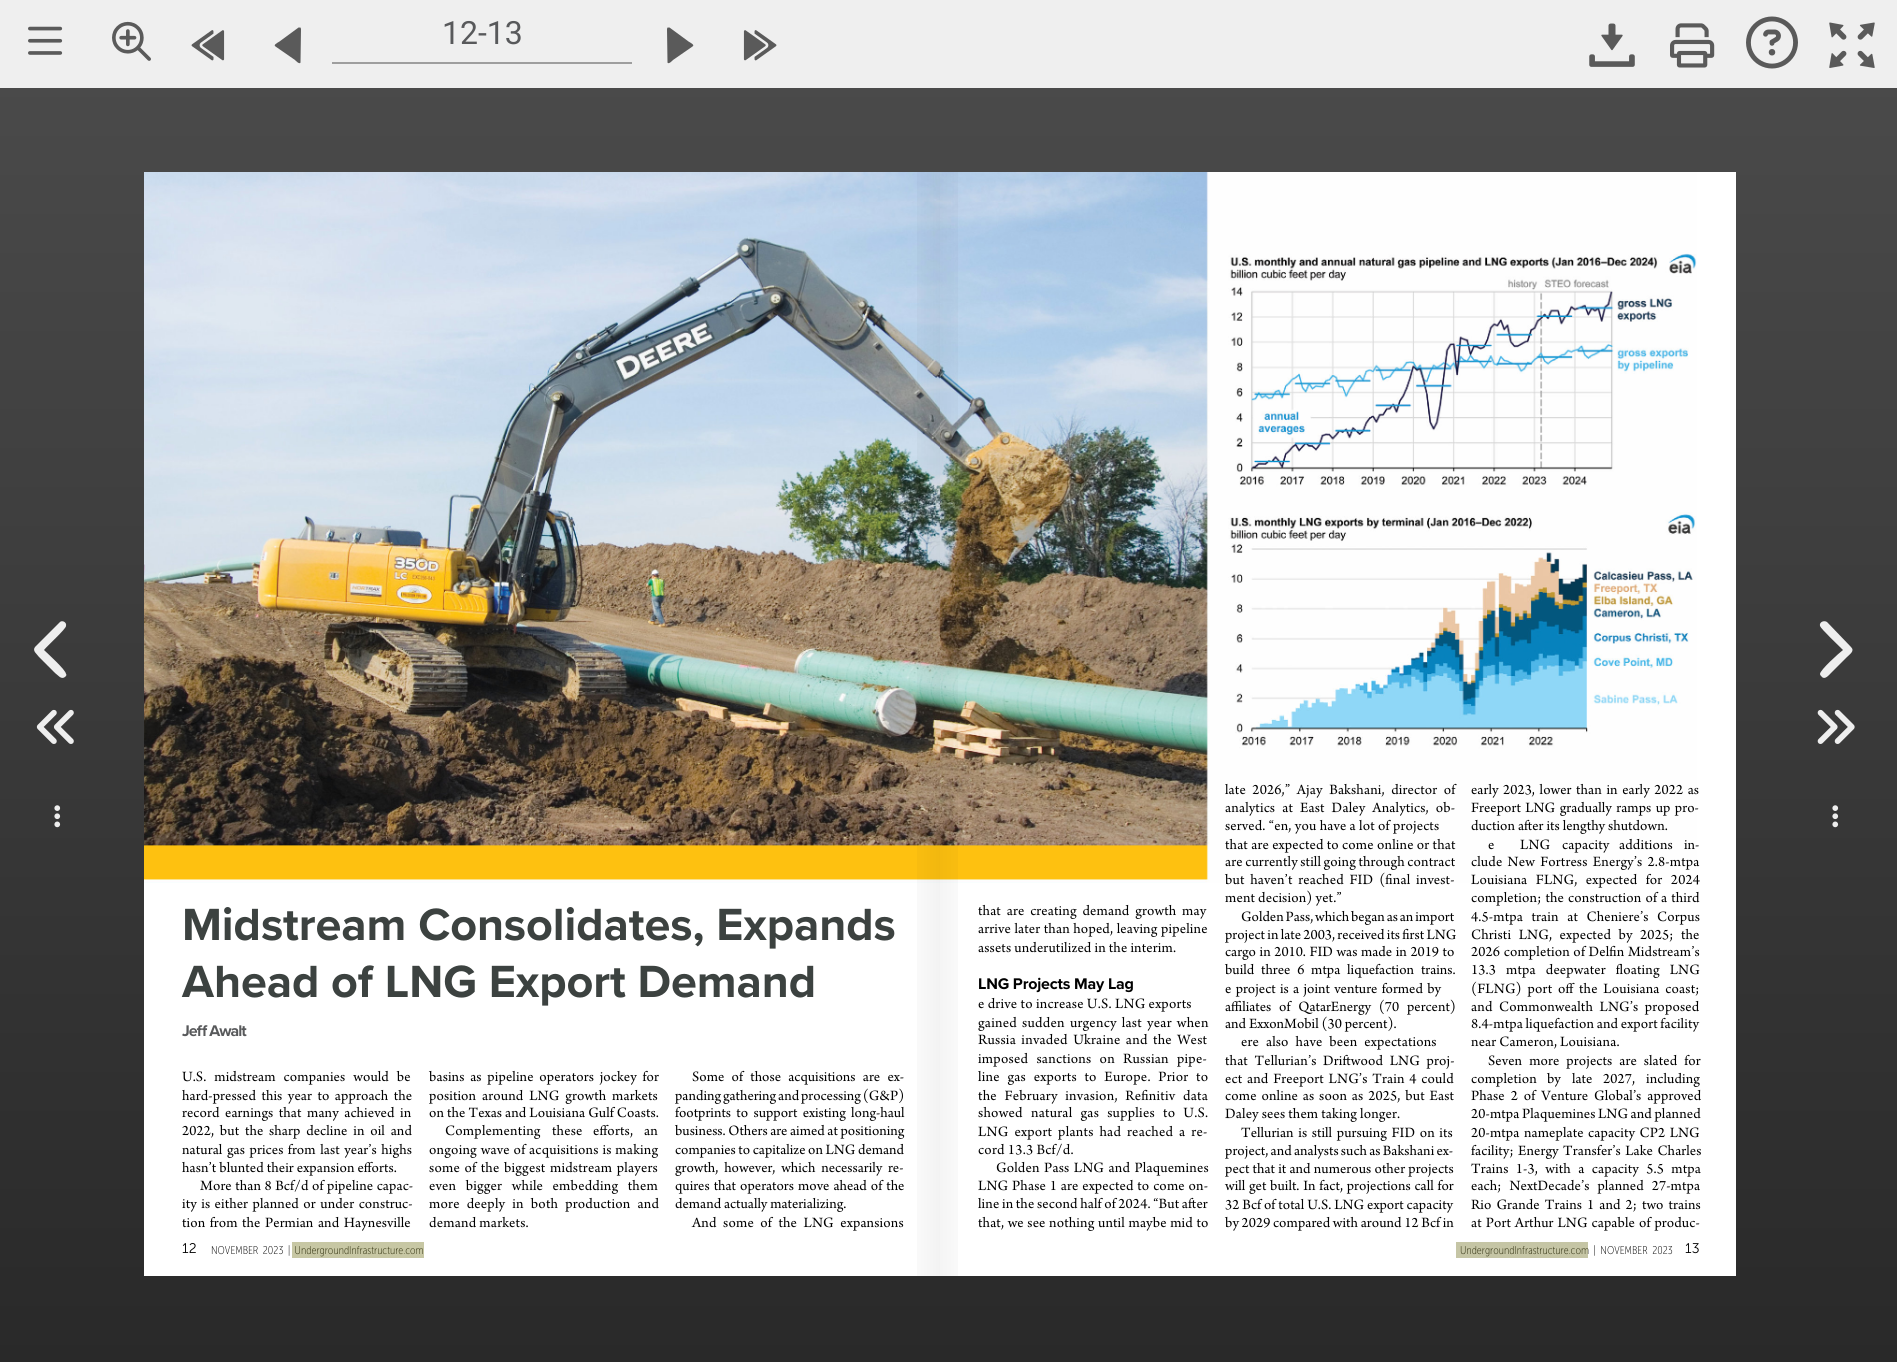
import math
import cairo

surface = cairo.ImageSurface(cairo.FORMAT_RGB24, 1897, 1362)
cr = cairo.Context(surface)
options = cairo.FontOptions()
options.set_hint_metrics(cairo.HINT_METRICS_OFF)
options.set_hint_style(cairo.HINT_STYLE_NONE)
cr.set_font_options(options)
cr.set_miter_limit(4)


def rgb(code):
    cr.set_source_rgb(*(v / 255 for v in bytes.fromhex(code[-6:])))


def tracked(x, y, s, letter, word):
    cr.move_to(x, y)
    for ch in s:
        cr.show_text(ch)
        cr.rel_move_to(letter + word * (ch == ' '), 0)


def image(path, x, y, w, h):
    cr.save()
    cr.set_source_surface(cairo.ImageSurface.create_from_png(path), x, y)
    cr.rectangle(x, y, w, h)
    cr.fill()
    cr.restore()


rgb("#ffffff")
cr.paint()
gradient = cairo.LinearGradient(949, 0, 949, 1362)
gradient.add_color_stop_rgba(0, 0.298, 0.298, 0.298, 1)
gradient.add_color_stop_rgba(1, 0.161, 0.161, 0.161, 1)
cr.set_source(gradient)
cr.rectangle(0, 88, 1897, 1274)
cr.fill()
rgb("#efefef")
cr.rectangle(0, 0, 1897, 88)
cr.fill()
image("img/1.png", 28, 26, 35, 29)
image("img/2.png", 112, 21, 39, 40)
image("img/3.png", 191, 30, 34, 31)
rgb("#5a5a5a")
cr.new_path()
cr.move_to(275.5, 46.5)
cr.line_to(295, 60)
cr.curve_to(295, 60, 299.5, 65, 300.5, 62.5)
cr.line_to(301, 29)
cr.line_to(300.5, 27.5)
cr.curve_to(300, 27.5, 299, 27.5, 298.5, 27.5)
cr.line_to(279.5, 41.5)
cr.curve_to(277, 43, 273, 45, 275.5, 46.5)
cr.close_path()
cr.fill()
rgb("#9e9e9e")
cr.rectangle(332, 62, 300, 2)
cr.fill()
rgb("#5a5a5a")
cr.new_path()
cr.move_to(692.5, 46.5)
cr.line_to(673, 60)
cr.curve_to(673, 60, 668.5, 65, 667.5, 62.5)
cr.line_to(667, 29)
cr.line_to(667.5, 27.5)
cr.curve_to(668, 27.5, 669, 27.5, 669.5, 27.5)
cr.line_to(688.5, 41.5)
cr.curve_to(691, 43, 695, 45, 692.5, 46.5)
cr.close_path()
cr.fill()
image("img/4.png", 743, 30, 34, 31)
image("img/5.png", 1589, 23, 46, 44)
image("img/6.png", 1670, 23, 45, 45)
image("img/7.png", 1746, 16, 52, 53)
image("img/8.png", 1829, 22, 46, 46)
rgb("#eeeeee")
cr.new_path()
cr.move_to(35, 647)
cr.curve_to(32, 651, 37, 654, 39, 657)
cr.line_to(55, 673)
cr.curve_to(58, 675, 61, 680, 65, 677)
cr.curve_to(66, 676, 67, 675, 66, 674)
cr.curve_to(66, 670, 47, 653, 44, 650)
cr.curve_to(47, 646, 66, 629, 66, 626)
cr.curve_to(67, 622, 62, 620, 60, 622)
cr.close_path()
cr.fill()
image("img/9.png", 36, 709, 38, 35)
image("img/10.png", 54, 805, 7, 23)
cr.new_path()
cr.move_to(1851, 647)
cr.curve_to(1855, 651, 1850, 654, 1847, 657)
cr.line_to(1831, 673)
cr.curve_to(1829, 675, 1825, 680, 1822, 677)
cr.curve_to(1821, 676, 1820, 675, 1820, 674)
cr.curve_to(1820, 670, 1839, 653, 1843, 650)
cr.curve_to(1839, 646, 1821, 629, 1820, 626)
cr.curve_to(1819, 622, 1824, 620, 1827, 622)
cr.close_path()
cr.fill()
image("img/11.png", 1817, 709, 38, 35)
image("img/10.png", 1832, 805, 7, 23)
rgb("#ffffff")
cr.rectangle(144, 172, 1592, 1104)
cr.fill()
image("img/12.png", 144, 172, 796, 711)
gradient = cairo.LinearGradient(144, 726, 940, 726)
gradient.add_color_stop_rgba(0.95, 0, 0, 0, 0)
gradient.add_color_stop_rgba(1, 0, 0, 0, 0.05)
cr.set_source(gradient)
cr.rectangle(917, 172, 23, 1104)
cr.fill()
image("img/13.png", 940, 172, 757, 711)
gradient = cairo.LinearGradient(1736, 726, 940, 726)
gradient.add_color_stop_rgba(0.95, 0, 0, 0, 0)
gradient.add_color_stop_rgba(1, 0, 0, 0, 0.04)
cr.set_source(gradient)
cr.rectangle(940, 172, 18, 1104)
cr.fill()
cr.select_font_face("Roboto")
cr.set_font_size(32)
rgb("#58595b")
cr.move_to(442, 44)
cr.show_text("12-13")
cr.select_font_face("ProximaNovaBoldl", cairo.FONT_SLANT_NORMAL, cairo.FONT_WEIGHT_BOLD)
cr.set_font_size(46.75)
rgb("#3c4240")
tracked(182, 940, "Midstream Consolidates, Expands", -0.1, 0)
tracked(182, 997, "Ahead of LNG Export Demand", -0.1, 0)
cr.set_font_size(16)
rgb("#58595b")
tracked(182, 1036, "Jeﬀ Awalt", -1, 0)
cr.select_font_face("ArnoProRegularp")
cr.set_font_size(15)
rgb("#010101")
tracked(182, 1081, "U.S. midstream companies would be", 0.1, 5)
tracked(429, 1081, "basins as pipeline operators jockey for", 0.1, 2.75)
tracked(692, 1081, "Some of those acquisitions are ex-", 0, 4.5)
tracked(182, 1100, "hard-pressed this year to approach the", 0.1, 2.5)
tracked(429, 1100, "position around LNG growth markets", 0.1, 3)
tracked(675, 1100, "panding gathering and processing (G&P)", 0, -1)
tracked(182, 1117, "record earnings that many achieved in", 0.1, 2.5)
tracked(429, 1117, "on the Texas and Louisiana Gulf Coasts.", 0.1, 0)
tracked(675, 1117, "footprints to support existing long-haul", 0, 2.5)
tracked(182, 1135, "2022, but the sharp decline in oil and", 0.1, 2.75)
for x, y, s in [
    (445, 1135, "Complementing"),
    (552, 1135, "these"),
    (593, 1135, "eﬀorts,"),
    (644, 1135, "an"),
]:
    tracked(x, y, s, 0.2, 0)
tracked(675, 1135, "business. Others are aimed at positioning", 0, -0.25)
tracked(182, 1154, "natural gas prices from last year’s highs", 0.1, 1.5)
tracked(429, 1154, "ongoing wave of acquisitions is making", 0.2, 0.75)
tracked(675, 1154, "companies to capitalize on LNG demand", 0, -0.25)
tracked(182, 1172, "hasn’t blunted their expansion eﬀorts.", 0.1, 0)
tracked(429, 1172, "some of the biggest midstream players", 0.2, 1.5)
tracked(675, 1172, "growth, however, which necessarily re-", 0, 3)
tracked(200, 1190, "More than 8 Bcf/d of pipeline capac-", 0.1, 0.5)
tracked(429, 1190, "even bigger while embedding them", 0.2, 6.5)
tracked(675, 1190, "quires that operators move ahead of the", 0, 1.25)
tracked(182, 1208, "ity is either planned or under construc-", 0.1, 1.5)
tracked(429, 1208, "more deeply in both production and", 0.2, 4)
cr.move_to(675, 1208)
cr.show_text("demand actually materializing.")
tracked(182, 1227, "tion from the Permian and Haynesville", 0.1, 1.5)
tracked(429, 1227, "demand markets.", 0.2, 0)
tracked(692, 1227, "And some of the LNG expansions", 0.15, 3.5)
cr.select_font_face("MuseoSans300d")
cr.set_font_size(14)
tracked(182, 1253, "12", 0.1, 0)
cr.select_font_face("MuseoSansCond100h")
cr.set_font_size(11.25)
tracked(211, 1254, "NOVEMBER 2023 | UndergroundInfrastructure.com", 0.05, 2.25)
cr.set_source_rgba(0.455, 0.455, 0.114, 0.4)
cr.rectangle(292, 1242, 132, 16)
cr.fill()
cr.select_font_face("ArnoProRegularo")
cr.set_font_size(15)
rgb("#010101")
tracked(1225, 794, "late 2026,” Ajay Bakshani, director of", 0.15, 3.5)
tracked(1471, 794, "early 2023, lower than in early 2022 as", 0.05, 1.75)
tracked(1225, 812, "analytics at East Daley Analytics, ob-", 0.15, 4)
tracked(1471, 812, "Freeport LNG gradually ramps up pro-", 0.05, 1.5)
tracked(1225, 830, "served. “en, you have a lot of projects", 0.15, 0.25)
tracked(1471, 830, "duction aﬅer its lengthy shutdown.", 0.05, 0)
tracked(1225, 849, "that are expected to come online or that", 0.15, 0.25)
for x, y, s in [
    (1488, 849, "e"),
    (1520, 849, "LNG"),
    (1562, 849, "capacity"),
    (1619, 849, "additions"),
]:
    tracked(x, y, s, 0.15, 0)
cr.move_to(1684, 849)
cr.show_text("in-")
tracked(1225, 866, "are currently still going through contract", 0.15, -0.5)
tracked(1471, 866, "clude New Fortress Energy’s 2.8-mtpa", 0.15, 2.25)
tracked(1225, 884, "but haven’t reached FID (ﬁnal invest-", 0.15, 2.75)
tracked(1471, 884, "Louisiana FLNG, expected for 2024", 0.15, 5.5)
tracked(1225, 902, "ment decision) yet.”", 0.15, 0)
tracked(1471, 902, "completion; the construction of a third", 0.15, 1)
tracked(978, 915, "that are creating demand growth may", 0.15, 2.75)
tracked(1241, 921, "Golden Pass, which began as an import", 0, -1)
tracked(1471, 921, "4.5-mtpa train at Cheniere’s Corpus", 0.15, 5.5)
tracked(978, 933, "arrive later than hoped, leaving pipeline", 0.15, 0.5)
tracked(1225, 939, "project in late 2003, received its ﬁrst LNG", 0, -0.5)
tracked(1471, 939, "Christi LNG, expected by 2025; the", 0.15, 4.5)
tracked(978, 952, "assets underutilized in the interim.", 0.15, 0)
tracked(1225, 956, "cargo in 2010. FID was made in 2019 to", 0, 0.75)
tracked(1471, 956, "2026 completion of Delﬁn Midstream’s", 0.15, 0.5)
tracked(1225, 974, "build three 6 mtpa liquefaction trains.", 0, 4)
tracked(1471, 974, "13.3 mtpa deepwater ﬂoating LNG", 0.15, 7)
cr.select_font_face("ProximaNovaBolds", cairo.FONT_SLANT_NORMAL, cairo.FONT_WEIGHT_BOLD)
cr.set_font_size(16)
tracked(978, 989, "LNG Projects May Lag", -0.2, 0)
cr.select_font_face("ArnoProRegularo")
cr.set_font_size(15)
tracked(1225, 993, "e project is a joint venture formed by", 0, 1.5)
tracked(1471, 993, "(FLNG) port oﬀ the Louisiana coast;", 0.15, 2.75)
tracked(978, 1008, "e drive to increase U.S. LNG exports", 0.25, 0)
tracked(1225, 1011, "aﬃliates of QatarEnergy (70 percent)", 0, 5)
tracked(1471, 1011, "and Commonwealth LNG’s proposed", 0.15, 3.5)
tracked(978, 1027, "gained sudden urgency last year when", 0.25, 2)
cr.move_to(1225, 1028)
cr.show_text("and ExxonMobil (30 percent).")
tracked(1471, 1028, "8.4-mtpa liquefaction and export facility", 0.15, -0.5)
tracked(978, 1044, "Russia invaded Ukraine and the West", 0.25, 2.25)
tracked(1241, 1046, "ere also have been expectations", 0.15, 4)
tracked(1471, 1046, "near Cameron, Louisiana.", 0.15, 0)
tracked(978, 1063, "imposed sanctions on Russian pipe-", 0.25, 5)
tracked(1225, 1065, "that Tellurian’s Driﬅwood LNG proj-", 0.15, 3.5)
tracked(1488, 1065, "Seven more projects are slated for", 0.1, 4)
tracked(978, 1081, "line gas exports to Europe. Prior to", 0.25, 4.5)
tracked(1225, 1083, "ect and Freeport LNG’s Train 4 could", 0.15, 1.75)
tracked(1471, 1083, "completion", 0.1, 0)
cr.move_to(1547, 1083)
cr.show_text("by")
cr.move_to(1572, 1083)
cr.show_text("late")
tracked(1603, 1083, "2027,", 0.1, 0)
tracked(1646, 1083, "including", 0.1, 0)
tracked(978, 1100, "the February invasion, Reﬁnitiv data", 0.25, 4.5)
tracked(1225, 1100, "come online as soon as 2025, but East", 0.15, 1.75)
tracked(1471, 1100, "Phase 2 of Venture Global’s approved", 0.1, 3)
tracked(978, 1117, "showed natural gas supplies to U.S.", 0.25, 5)
tracked(1225, 1118, "Daley sees them taking longer.", 0.15, 0)
tracked(1471, 1118, "20-mtpa Plaquemines LNG and planned", 0.1, -0.5)
tracked(978, 1136, "LNG export plants had reached a re-", 0.25, 2.75)
tracked(1241, 1137, "Tellurian is still pursuing FID on its", 0.05, 1.75)
tracked(1471, 1137, "20-mtpa nameplate capacity CP2 LNG", 0.1, 1.5)
tracked(978, 1154, "cord 13.3 Bcf/d.", 0.25, 0)
tracked(1225, 1155, "project, and analysts such as Bakshani ex-", 0.05, -0.75)
tracked(1471, 1155, "facility; Energy Transfer’s Lake Charles", 0.1, 1.5)
tracked(996, 1172, "Golden Pass LNG and Plaquemines", 0.15, 1.5)
tracked(1225, 1173, "pect that it and numerous other projects", 0.05, 0.25)
tracked(1471, 1173, "Trains 1-3, with a capacity 5.5 mtpa", 0.1, 4.5)
tracked(978, 1190, "LNG Phase 1 are expected to come on-", 0.15, 0.75)
tracked(1225, 1190, "will get built. In fact, projections call for", 0.05, 0.75)
tracked(1471, 1190, "each; NextDecade’s planned 27-mtpa", 0.1, 5)
tracked(978, 1208, "line in the second half of 2024. “But aﬅer", 0.15, -0.5)
tracked(1225, 1209, "32 Bcf of total U.S. LNG export capacity", 0.05, 0)
tracked(1471, 1209, "Rio Grande Trains 1 and 2; two trains", 0.1, 2)
tracked(978, 1227, "that, we see nothing until maybe mid to", 0.15, 0.5)
tracked(1225, 1227, "by 2029 compared with around 12 Bcf in", 0.05, -0.25)
tracked(1471, 1227, "at Port Arthur LNG capable of produc-", 0.1, 1)
cr.select_font_face("MuseoSansCond100h")
cr.set_font_size(11.25)
tracked(1460, 1254, "UndergroundInfrastructure.com | NOVEMBER 2023", 0.05, 2.25)
cr.select_font_face("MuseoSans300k")
cr.set_font_size(14)
tracked(1685, 1253, "13", 0.15, 0)
cr.set_source_rgba(0.435, 0.435, 0.118, 0.4)
cr.rectangle(1456, 1242, 132, 16)
cr.fill()
surface.write_to_png("page.png")
